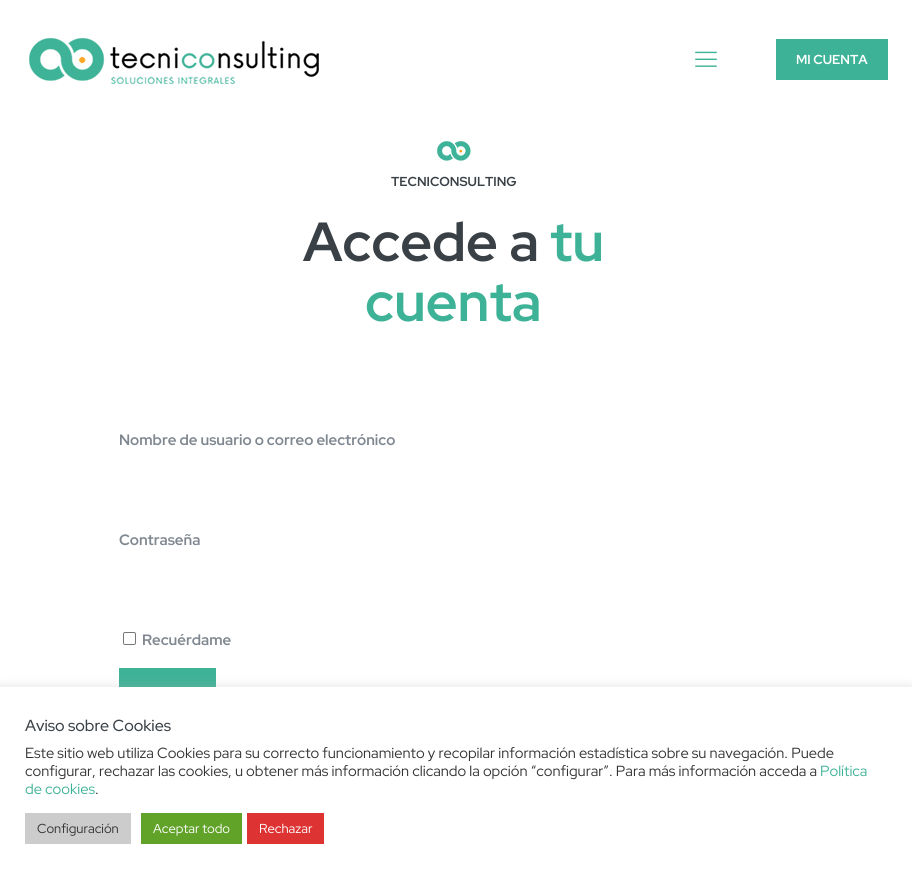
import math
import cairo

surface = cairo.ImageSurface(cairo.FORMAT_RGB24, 912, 874)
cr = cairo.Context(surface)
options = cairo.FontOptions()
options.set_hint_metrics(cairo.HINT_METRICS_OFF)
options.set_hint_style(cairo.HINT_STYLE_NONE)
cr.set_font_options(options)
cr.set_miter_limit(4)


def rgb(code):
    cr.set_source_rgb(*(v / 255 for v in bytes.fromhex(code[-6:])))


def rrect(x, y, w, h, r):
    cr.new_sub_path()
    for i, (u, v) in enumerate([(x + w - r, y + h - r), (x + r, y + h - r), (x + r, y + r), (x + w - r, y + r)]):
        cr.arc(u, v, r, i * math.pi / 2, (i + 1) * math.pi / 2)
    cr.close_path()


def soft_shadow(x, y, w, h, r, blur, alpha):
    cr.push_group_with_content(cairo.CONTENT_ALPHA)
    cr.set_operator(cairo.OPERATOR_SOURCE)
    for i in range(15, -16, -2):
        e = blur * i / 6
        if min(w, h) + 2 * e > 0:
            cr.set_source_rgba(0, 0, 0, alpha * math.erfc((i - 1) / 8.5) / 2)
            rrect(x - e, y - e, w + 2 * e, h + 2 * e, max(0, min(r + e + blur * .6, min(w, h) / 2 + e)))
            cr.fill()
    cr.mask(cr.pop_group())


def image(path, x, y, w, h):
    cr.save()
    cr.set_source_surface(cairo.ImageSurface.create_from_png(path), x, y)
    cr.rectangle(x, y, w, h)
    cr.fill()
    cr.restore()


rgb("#ffffff")
cr.paint()
image("img/1.png", 29, 38, 290, 46)
image("img/2.png", 695, 51, 22, 16)
rgb("#3eb297")
cr.rectangle(776, 39, 112, 41)
cr.fill()
image("img/3.png", 437, 141, 34, 20)
rrect(123.5, 632.5, 12, 12, 1.5)
rgb("#767676")
cr.set_line_width(1)
cr.stroke()
rgb("#3eb297")
cr.rectangle(119, 668, 97, 19)
cr.fill()
rgb("#acabab")
soft_shadow(0, 686, 912, 187, 0, 5, 0.3)
for x, y, w, h, color in [
    (0, 687, 912, 187, "#ffffff"),
    (25, 813, 106, 31, "#cccccc"),
    (141, 813, 101, 31, "#61a229"),
    (247, 813, 77, 31, "#dd3333"),
]:
    rgb(color)
    cr.rectangle(x, y, w, h)
    cr.fill()
cr.select_font_face("Red Hat Display", cairo.FONT_SLANT_NORMAL, cairo.FONT_WEIGHT_BOLD)
cr.set_font_size(13)
rgb("#ffffff")
cr.move_to(796, 64)
cr.show_text("MI CUENTA")
rgb("#3a4146")
cr.move_to(391, 186)
cr.show_text("TECNICONSULTING")
cr.set_font_size(55)
cr.move_to(303, 261)
cr.show_text("Accede a")
rgb("#3eb297")
cr.move_to(550, 261)
cr.show_text("tu")
cr.move_to(365, 321)
cr.show_text("cuenta")
cr.set_font_size(15)
rgb("#7f8790")
for x, y, s in [
    (119, 445, "Nombre de usuario o correo electrónico"),
    (119, 545, "Contraseña"),
    (142, 645, "Recuérdame"),
]:
    cr.move_to(x, y)
    cr.show_text(s)
cr.select_font_face("Red Hat Display Medium")
cr.set_font_size(16)
rgb("#3a4146")
cr.move_to(25, 731)
cr.show_text("Aviso sobre Cookies")
cr.select_font_face("Red Hat Display")
cr.set_font_size(14.67)
rgb("#333333")
cr.move_to(25, 758)
cr.show_text("Este sitio web utiliza Cookies para su correcto funcionamiento y recopilar información estadística sobre su navegación. Puede")
cr.move_to(25, 776)
cr.show_text("configurar, rechazar las cookies, u obtener más información clicando la opción “configurar”. Para más información acceda a")
rgb("#3eb297")
cr.move_to(820, 776)
cr.show_text("Política")
cr.move_to(25, 794)
cr.show_text("de cookies")
rgb("#333333")
cr.move_to(95, 794)
cr.show_text(".")
cr.set_font_size(13)
cr.move_to(37, 833)
cr.show_text("Configuración")
rgb("#ffffff")
cr.move_to(153, 833)
cr.show_text("Aceptar todo")
cr.move_to(259, 833)
cr.show_text("Rechazar")
surface.write_to_png("page.png")
